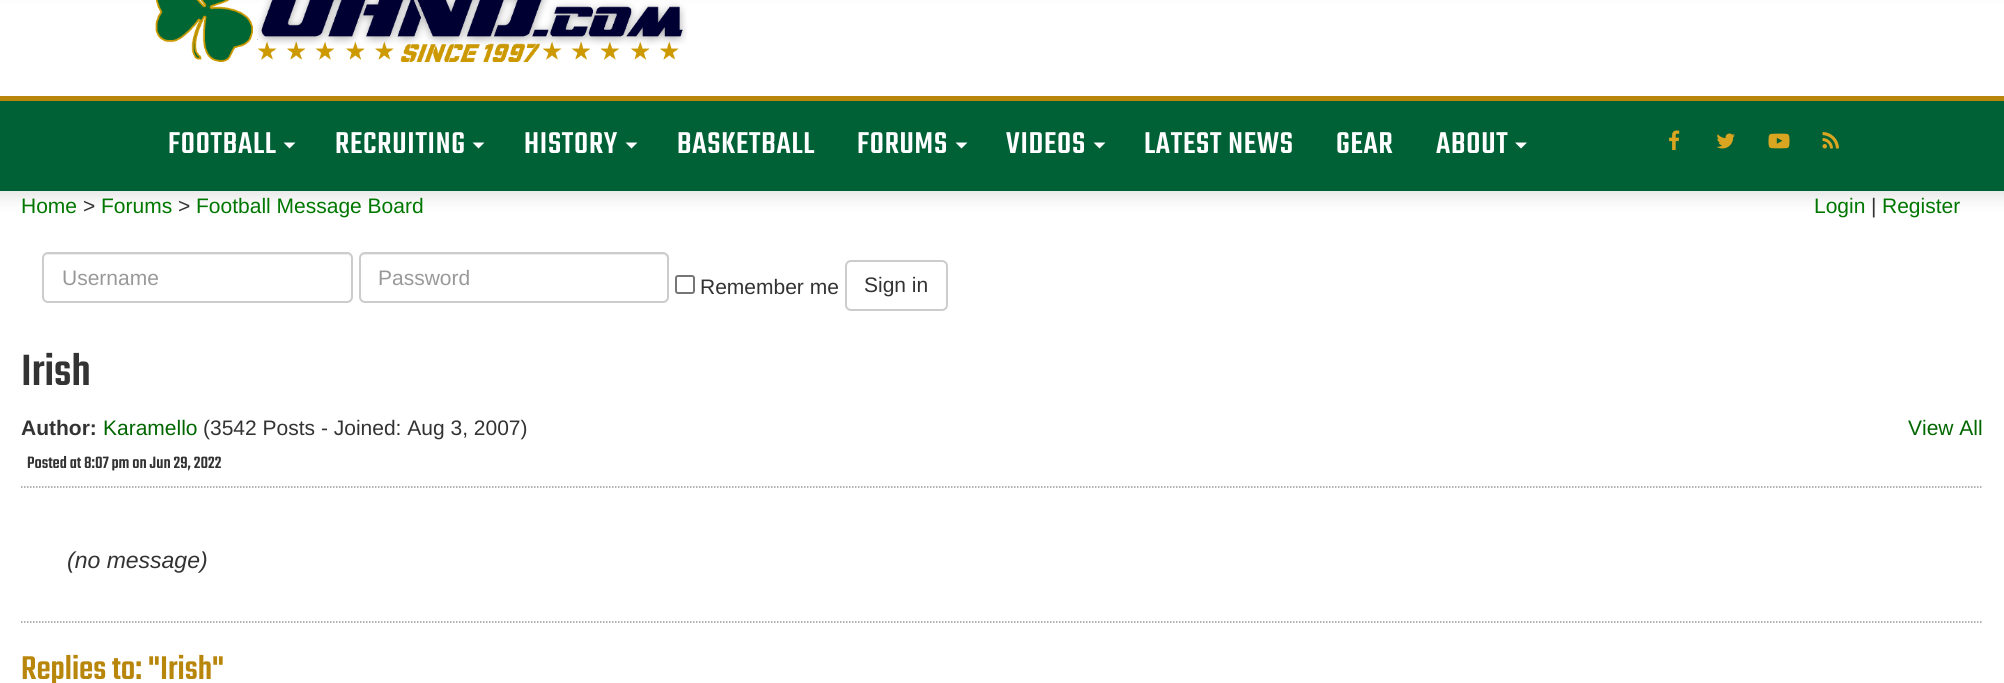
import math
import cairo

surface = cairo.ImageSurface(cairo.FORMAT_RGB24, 2004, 683)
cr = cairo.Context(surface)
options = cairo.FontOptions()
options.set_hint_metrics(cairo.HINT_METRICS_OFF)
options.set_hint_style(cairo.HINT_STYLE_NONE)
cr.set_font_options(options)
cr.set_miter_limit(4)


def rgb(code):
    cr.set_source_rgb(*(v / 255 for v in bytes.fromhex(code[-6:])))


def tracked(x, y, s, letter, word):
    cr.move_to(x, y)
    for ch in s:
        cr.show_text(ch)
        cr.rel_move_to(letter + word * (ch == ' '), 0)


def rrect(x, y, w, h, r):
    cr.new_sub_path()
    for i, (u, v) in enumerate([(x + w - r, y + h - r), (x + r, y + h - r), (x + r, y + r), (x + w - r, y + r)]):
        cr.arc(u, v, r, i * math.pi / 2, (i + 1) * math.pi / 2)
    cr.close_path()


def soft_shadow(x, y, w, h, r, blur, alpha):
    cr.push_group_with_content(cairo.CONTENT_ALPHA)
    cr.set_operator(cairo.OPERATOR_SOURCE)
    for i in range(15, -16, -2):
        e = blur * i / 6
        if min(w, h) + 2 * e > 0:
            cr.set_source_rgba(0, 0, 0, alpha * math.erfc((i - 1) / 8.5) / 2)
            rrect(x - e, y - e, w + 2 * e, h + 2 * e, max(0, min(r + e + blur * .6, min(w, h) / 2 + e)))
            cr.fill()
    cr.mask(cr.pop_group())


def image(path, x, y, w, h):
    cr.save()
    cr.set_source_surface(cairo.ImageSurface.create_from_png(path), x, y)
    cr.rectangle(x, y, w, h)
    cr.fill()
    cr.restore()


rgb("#ffffff")
cr.paint()
rgb("#000000")
soft_shadow(-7, -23, 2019, 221, 0, 7.5, 0.1)
gradient = cairo.LinearGradient(1002, -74, 1002, 191)
gradient.add_color_stop_rgba(0, 0.875, 0.875, 0.875, 1)
gradient.add_color_stop_rgba(0.3, 1, 1, 1, 1)
gradient.add_color_stop_rgba(0.5, 1, 1, 1, 1)
cr.set_source(gradient)
cr.rectangle(0, 0, 2004, 96)
cr.fill()
image("img/1.png", 155, 0, 532, 62)
rgb("#b8860b")
cr.rectangle(0, 96, 2004, 5)
cr.fill()
rgb("#006036")
cr.rectangle(0, 101, 2004, 90)
cr.fill()
rgb("#ffffff")
cr.new_path()
cr.move_to(283.5, 142.5)
cr.line_to(295.5, 142.5)
cr.line_to(289.5, 148.5)
cr.close_path()
cr.fill()
cr.new_path()
cr.move_to(472.5, 142.5)
cr.line_to(484.5, 142.5)
cr.line_to(478.5, 148.5)
cr.close_path()
cr.fill()
cr.new_path()
cr.move_to(625.5, 142.5)
cr.line_to(637.5, 142.5)
cr.line_to(631.5, 148.5)
cr.close_path()
cr.fill()
cr.new_path()
cr.move_to(955.5, 142.5)
cr.line_to(967.5, 142.5)
cr.line_to(961.5, 148.5)
cr.close_path()
cr.fill()
cr.new_path()
cr.move_to(1093.5, 142.5)
cr.line_to(1105.5, 142.5)
cr.line_to(1099.5, 148.5)
cr.close_path()
cr.fill()
cr.new_path()
cr.move_to(1515, 142.5)
cr.line_to(1527, 142.5)
cr.line_to(1521, 148.5)
cr.close_path()
cr.fill()
image("img/2.png", 1669, 130, 11, 20)
image("img/3.png", 1716, 133, 19, 16)
image("img/4.png", 1768, 133, 22, 16)
image("img/5.png", 1822, 132, 17, 17)
rgb("#ececec")
cr.new_path()
cr.move_to(48, 255)
cr.line_to(346, 255)
cr.curve_to(349, 255, 351, 257, 351, 260)
cr.curve_to(351, 257, 349, 254, 346, 254)
cr.line_to(49, 254)
cr.curve_to(46, 254, 44, 257, 44, 260)
cr.curve_to(44, 257, 46, 255, 48, 255)
cr.close_path()
cr.fill()
rrect(43, 253, 309, 49, 5)
rgb("#cccccc")
cr.stroke()
rgb("#ececec")
cr.new_path()
cr.move_to(364, 255)
cr.line_to(663, 255)
cr.curve_to(665, 255, 668, 257, 668, 260)
cr.curve_to(668, 257, 666, 254, 663, 254)
cr.line_to(365, 254)
cr.curve_to(362, 254, 360, 257, 360, 260)
cr.curve_to(360, 257, 362, 255, 364, 255)
cr.close_path()
cr.fill()
rrect(360, 253, 308, 49, 5)
rgb("#cccccc")
cr.stroke()
rrect(676, 276, 18, 17, 2)
rgb("#767676")
cr.stroke()
rrect(846, 261, 101, 49, 5)
rgb("#cccccc")
cr.stroke()
cr.new_path()
cr.move_to(21, 487)
cr.line_to(1983, 487)
rgb("#999999")
cr.set_line_width(1.5)
cr.set_dash([1.5, 1.5])
cr.stroke()
cr.new_path()
cr.move_to(21, 622)
cr.line_to(1983, 622)
cr.stroke()
cr.select_font_face("Teko Medium")
cr.set_font_size(33)
rgb("#ffffff")
for x, y, s in [
    (168, 153, "FOOTBALL"),
    (335, 153, "RECRUITING"),
    (524, 153, "HISTORY"),
    (677, 153, "BASKETBALL"),
    (857, 153, "FORUMS"),
    (1006, 153, "VIDEOS"),
    (1144, 153, "LATEST NEWS"),
    (1336, 153, "GEAR"),
    (1436, 153, "ABOUT"),
]:
    tracked(x, y, s, 0.75, 0)
cr.select_font_face("Liberation Sans")
cr.set_font_size(21)
rgb("#007700")
cr.move_to(21, 213)
cr.show_text("Home")
rgb("#333333")
cr.move_to(83, 213)
cr.show_text(">")
rgb("#007700")
cr.move_to(101, 213)
cr.show_text("Forums")
rgb("#333333")
cr.move_to(178, 213)
cr.show_text(">")
rgb("#007700")
cr.move_to(196, 213)
cr.show_text("Football Message Board")
cr.move_to(1814, 213)
cr.show_text("Login")
rgb("#333333")
cr.move_to(1871, 213)
cr.show_text("|")
rgb("#007700")
cr.move_to(1882, 213)
cr.show_text("Register")
rgb("#999999")
cr.move_to(62, 285)
cr.show_text("Username")
cr.move_to(378, 285)
cr.show_text("Password")
rgb("#333333")
cr.move_to(700, 294)
cr.show_text("Remember me")
cr.move_to(864, 292)
cr.show_text("Sign in")
cr.select_font_face("Teko Medium")
cr.set_font_size(48)
cr.move_to(21, 385)
cr.show_text("Irish")
cr.select_font_face("Liberation Sans", cairo.FONT_SLANT_NORMAL, cairo.FONT_WEIGHT_BOLD)
cr.set_font_size(21)
cr.move_to(21, 435)
cr.show_text("Author:")
cr.select_font_face("Liberation Sans")
rgb("#006600")
cr.move_to(103, 435)
cr.show_text("Karamello")
rgb("#333333")
cr.move_to(203, 435)
cr.show_text("(3542 Posts - Joined: Aug 3, 2007)")
cr.select_font_face("Teko Medium")
cr.set_font_size(18)
cr.move_to(27, 468)
cr.show_text("Posted at 8:07 pm on Jun 29, 2022")
cr.select_font_face("Liberation Sans")
cr.set_font_size(21)
rgb("#006600")
cr.move_to(1908, 435)
cr.show_text("View All")
cr.select_font_face("Liberation Sans", cairo.FONT_SLANT_ITALIC)
cr.set_font_size(23)
rgb("#333333")
cr.move_to(67, 568)
cr.show_text("(no message)")
cr.select_font_face("Teko Medium")
cr.set_font_size(36)
rgb("#b8860b")
cr.move_to(21, 679)
cr.show_text("Replies to: \"Irish\"")
surface.write_to_png("page.png")
